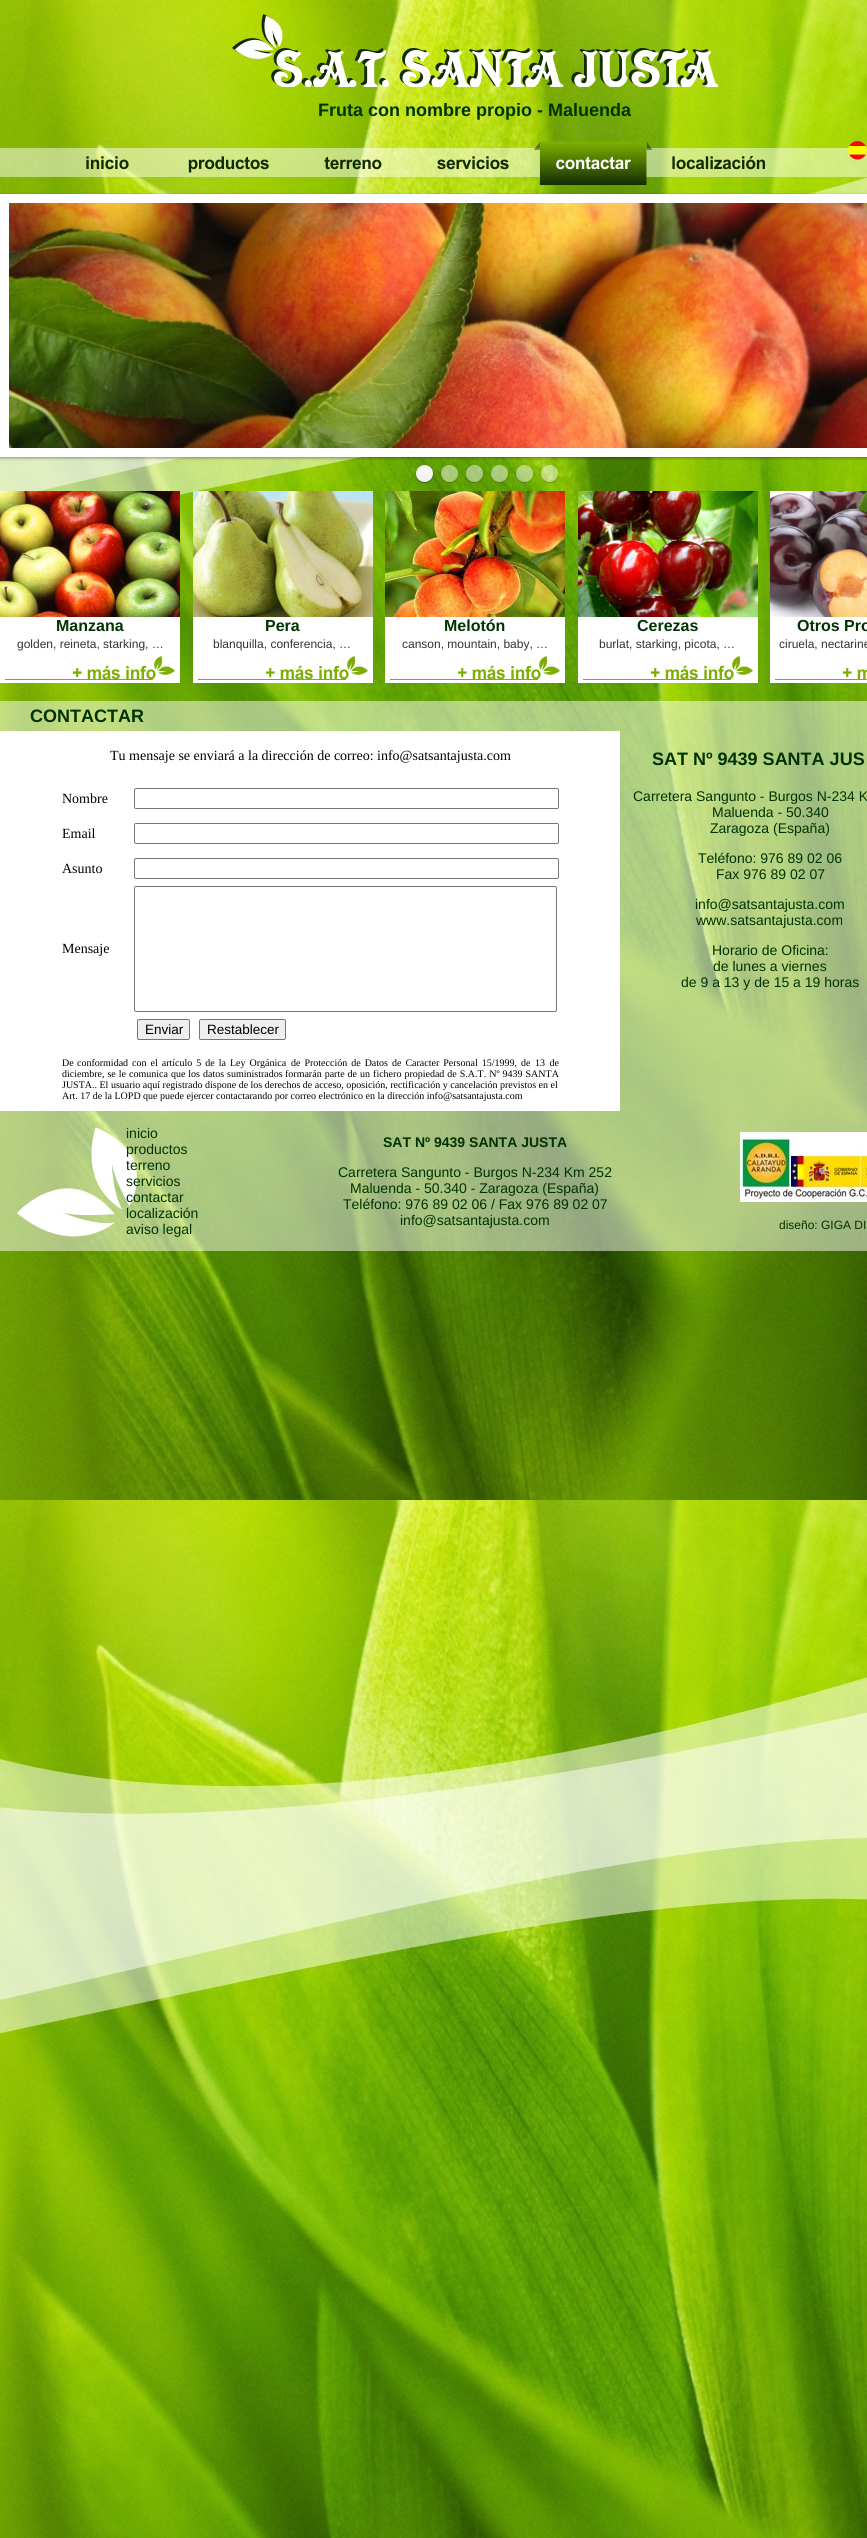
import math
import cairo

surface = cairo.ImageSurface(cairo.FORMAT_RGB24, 867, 2538)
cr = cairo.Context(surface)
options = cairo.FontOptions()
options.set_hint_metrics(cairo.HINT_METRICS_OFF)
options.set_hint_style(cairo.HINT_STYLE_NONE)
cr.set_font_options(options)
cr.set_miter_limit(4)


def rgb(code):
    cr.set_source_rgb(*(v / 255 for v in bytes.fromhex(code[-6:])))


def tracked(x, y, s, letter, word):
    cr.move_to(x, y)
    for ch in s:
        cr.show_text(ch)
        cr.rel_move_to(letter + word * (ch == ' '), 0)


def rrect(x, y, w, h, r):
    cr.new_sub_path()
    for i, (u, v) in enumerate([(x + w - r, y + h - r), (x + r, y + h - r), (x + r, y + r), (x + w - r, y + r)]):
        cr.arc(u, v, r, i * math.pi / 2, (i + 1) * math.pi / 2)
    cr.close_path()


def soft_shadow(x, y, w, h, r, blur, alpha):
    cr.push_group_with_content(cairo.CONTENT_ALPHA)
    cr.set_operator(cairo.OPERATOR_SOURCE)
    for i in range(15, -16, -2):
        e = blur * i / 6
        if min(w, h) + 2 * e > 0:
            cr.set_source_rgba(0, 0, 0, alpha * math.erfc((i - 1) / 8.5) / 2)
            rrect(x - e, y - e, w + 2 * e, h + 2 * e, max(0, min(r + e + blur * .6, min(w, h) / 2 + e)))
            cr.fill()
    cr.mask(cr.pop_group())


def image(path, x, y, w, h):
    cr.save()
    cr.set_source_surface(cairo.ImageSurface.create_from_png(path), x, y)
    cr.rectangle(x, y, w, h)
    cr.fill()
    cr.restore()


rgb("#ffffff")
cr.paint()
image("img/1.png", 0, 0, 867, 2538)
image("img/2.png", 232, 14, 486, 73)
cr.set_source_rgba(1, 1, 1, 0.5)
cr.rectangle(0, 148, 867, 29)
cr.fill()
image("img/3.png", 534, 141, 119, 44)
image("img/4.png", 848, 141, 19, 19)
image("img/5.png", 86, 156, 43, 14)
image("img/6.png", 188, 156, 81, 17)
image("img/7.png", 324, 156, 58, 14)
image("img/8.png", 437, 156, 72, 14)
image("img/9.png", 672, 156, 93, 14)
rgb("#000000")
soft_shadow(0, 195, 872, 263, 0, 1.5, 0.4)
cr.rectangle(4.5, 198.5, 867, 254)
rgb("#ffffff")
cr.set_line_width(9)
cr.stroke()
image("img/10.png", 9, 203, 858, 245)
image("img/11.png", 415, 465, 19, 18)
image("img/12.png", 440, 465, 19, 18)
image("img/13.png", 465, 465, 19, 18)
image("img/14.png", 490, 465, 19, 18)
image("img/15.png", 515, 465, 19, 18)
image("img/16.png", 540, 465, 19, 18)
image("img/17.png", 0, 491, 180, 126)
image("img/18.png", 193, 491, 180, 126)
image("img/19.png", 385, 491, 180, 126)
image("img/20.png", 578, 491, 180, 126)
image("img/21.png", 770, 491, 97, 126)
for x, y, w, h, color in [
    (0, 617, 180, 66, "#ffffff"),
    (193, 617, 180, 66, "#ffffff"),
    (385, 617, 180, 66, "#ffffff"),
    (578, 617, 180, 66, "#ffffff"),
    (770, 617, 97, 66, "#ffffff"),
]:
    rgb(color)
    cr.rectangle(x, y, w, h)
    cr.fill()
image("img/22.png", 5, 656, 170, 24)
image("img/22.png", 198, 656, 170, 24)
image("img/22.png", 390, 656, 170, 24)
image("img/22.png", 583, 656, 170, 24)
image("img/23.png", 775, 668, 92, 12)
cr.set_source_rgba(1, 1, 1, 0.5)
cr.rectangle(0, 701, 30, 30)
cr.fill()
cr.rectangle(30, 701, 560, 30)
cr.fill()
cr.rectangle(590, 701, 30, 30)
cr.fill()
cr.rectangle(620, 701, 247, 30)
cr.fill()
rgb("#ffffff")
cr.rectangle(0, 731, 620, 380)
cr.fill()
rrect(134.5, 788.5, 424, 20, 1.5)
rgb("#767676")
cr.set_line_width(1)
cr.stroke()
rrect(134.5, 823.5, 424, 20, 1.5)
cr.stroke()
rrect(134.5, 858.5, 424, 20, 1.5)
cr.stroke()
rrect(134.5, 886.5, 422, 125, 1.5)
cr.stroke()
rgb("#efefef")
rrect(137.5, 1019.5, 52, 20, 1.5)
cr.fill_preserve()
rgb("#767676")
cr.stroke()
rgb("#efefef")
rrect(199.5, 1019.5, 86, 20, 1.5)
cr.fill_preserve()
rgb("#767676")
cr.stroke()
cr.set_source_rgba(1, 1, 1, 0.5)
cr.rectangle(620, 731, 247, 380)
cr.fill()
image("img/24.png", 0, 1111, 220, 140)
cr.rectangle(220, 1111, 510, 140)
cr.fill()
cr.rectangle(730, 1111, 137, 140)
cr.fill()
image("img/25.png", 740, 1132, 127, 70)
cr.select_font_face("Liberation Sans", cairo.FONT_SLANT_NORMAL, cairo.FONT_WEIGHT_BOLD)
cr.set_font_size(18)
rgb("#003300")
cr.move_to(318, 116)
cr.show_text("Fruta con nombre propio - Maluenda")
cr.set_font_size(16)
for x, y, s in [
    (56, 631, "Manzana"),
    (265, 631, "Pera"),
    (444, 631, "Melotón"),
    (637, 631, "Cerezas"),
    (797, 631, "Otros Pro"),
]:
    cr.move_to(x, y)
    cr.show_text(s)
cr.select_font_face("Liberation Sans")
cr.set_font_size(12)
rgb("#333333")
for x, y, s in [
    (17, 648, "golden, reineta, starking, …"),
    (213, 648, "blanquilla, conferencia, …"),
    (402, 648, "canson, mountain, baby, …"),
    (599, 648, "burlat, starking, picota, …"),
    (779, 648, "ciruela, nectarine"),
]:
    cr.move_to(x, y)
    cr.show_text(s)
cr.select_font_face("Liberation Sans", cairo.FONT_SLANT_NORMAL, cairo.FONT_WEIGHT_BOLD)
cr.set_font_size(18)
rgb("#003300")
cr.move_to(30, 722)
cr.show_text("CONTACTAR")
cr.select_font_face("Liberation Serif")
cr.set_font_size(14)
rgb("#000000")
for x, y, s in [
    (110, 760, "Tu mensaje se enviará a la dirección de correo: info@satsantajusta.com"),
    (62, 803, "Nombre"),
    (62, 838, "Email"),
    (62, 873, "Asunto"),
    (62, 953, "Mensaje"),
]:
    cr.move_to(x, y)
    cr.show_text(s)
cr.select_font_face("Liberation Sans")
cr.set_font_size(13.5)
cr.move_to(145, 1034)
cr.show_text("Enviar")
cr.move_to(207, 1034)
cr.show_text("Restablecer")
cr.select_font_face("Liberation Serif")
cr.set_font_size(10)
cr.move_to(62, 1066)
cr.show_text("De")
tracked(77, 1066, "conformidad con el artículo 5 de la Ley Orgánica", 0, 1.5)
tracked(291, 1066, "de Protección de Datos de Caracter Personal 15/1999,", 0, 1.5)
tracked(521, 1066, "de 13 de", 0, 2)
tracked(62, 1077, "diciembre, se le comunica que los datos suministrados", 0, 0.5)
tracked(285, 1077, "formarán parte de un fichero propiedad de S.A.T. Nº 9439 SANTA", 0, 0.5)
cr.move_to(62, 1088)
cr.show_text("JUSTA.. El usuario aquí registrado dispone de los derechos de acceso, oposición, rectificación y cancelación previstos en el")
cr.move_to(62, 1099)
cr.show_text("Art. 17 de la LOPD que puede ejercer contactarando por correo electrónico en la dirección info@satsantajusta.com")
cr.select_font_face("Liberation Sans", cairo.FONT_SLANT_NORMAL, cairo.FONT_WEIGHT_BOLD)
cr.set_font_size(18)
rgb("#003300")
cr.move_to(652, 765)
cr.show_text("SAT Nº 9439 SANTA JUS")
cr.select_font_face("Liberation Sans")
cr.set_font_size(14)
for x, y, s in [
    (633, 801, "Carretera Sangunto - Burgos N-234 K"),
    (712, 817, "Maluenda - 50.340"),
    (710, 833, "Zaragoza (España)"),
    (698, 863, "Teléfono: 976 89 02 06"),
    (716, 879, "Fax 976 89 02 07"),
    (695, 909, "info@satsantajusta.com"),
    (696, 925, "www.satsantajusta.com"),
    (712, 955, "Horario de Oficina:"),
    (713, 971, "de lunes a viernes"),
    (681, 987, "de 9 a 13 y de 15 a 19 horas"),
    (126, 1138, "inicio"),
    (126, 1154, "productos"),
    (126, 1170, "terreno"),
    (126, 1186, "servicios"),
    (126, 1202, "contactar"),
    (126, 1218, "localización"),
    (126, 1234, "aviso legal"),
]:
    cr.move_to(x, y)
    cr.show_text(s)
cr.select_font_face("Liberation Sans", cairo.FONT_SLANT_NORMAL, cairo.FONT_WEIGHT_BOLD)
cr.move_to(383, 1147)
cr.show_text("SAT Nº 9439 SANTA JUSTA")
cr.select_font_face("Liberation Sans")
for x, y, s in [
    (338, 1177, "Carretera Sangunto - Burgos N-234 Km 252"),
    (350, 1193, "Maluenda - 50.340 - Zaragoza (España)"),
    (343, 1209, "Teléfono: 976 89 02 06 / Fax 976 89 02 07"),
    (400, 1225, "info@satsantajusta.com"),
]:
    cr.move_to(x, y)
    cr.show_text(s)
cr.set_font_size(12)
cr.move_to(779, 1229)
cr.show_text("diseño: GIGA DI")
surface.write_to_png("page.png")
